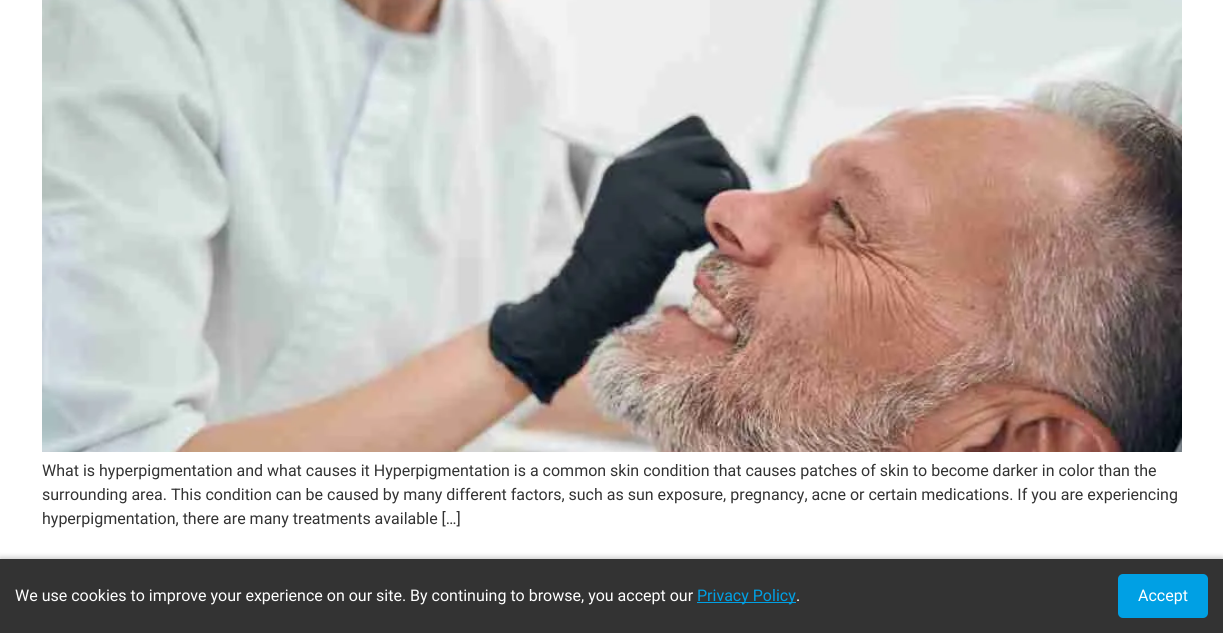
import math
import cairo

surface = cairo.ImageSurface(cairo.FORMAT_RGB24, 1223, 633)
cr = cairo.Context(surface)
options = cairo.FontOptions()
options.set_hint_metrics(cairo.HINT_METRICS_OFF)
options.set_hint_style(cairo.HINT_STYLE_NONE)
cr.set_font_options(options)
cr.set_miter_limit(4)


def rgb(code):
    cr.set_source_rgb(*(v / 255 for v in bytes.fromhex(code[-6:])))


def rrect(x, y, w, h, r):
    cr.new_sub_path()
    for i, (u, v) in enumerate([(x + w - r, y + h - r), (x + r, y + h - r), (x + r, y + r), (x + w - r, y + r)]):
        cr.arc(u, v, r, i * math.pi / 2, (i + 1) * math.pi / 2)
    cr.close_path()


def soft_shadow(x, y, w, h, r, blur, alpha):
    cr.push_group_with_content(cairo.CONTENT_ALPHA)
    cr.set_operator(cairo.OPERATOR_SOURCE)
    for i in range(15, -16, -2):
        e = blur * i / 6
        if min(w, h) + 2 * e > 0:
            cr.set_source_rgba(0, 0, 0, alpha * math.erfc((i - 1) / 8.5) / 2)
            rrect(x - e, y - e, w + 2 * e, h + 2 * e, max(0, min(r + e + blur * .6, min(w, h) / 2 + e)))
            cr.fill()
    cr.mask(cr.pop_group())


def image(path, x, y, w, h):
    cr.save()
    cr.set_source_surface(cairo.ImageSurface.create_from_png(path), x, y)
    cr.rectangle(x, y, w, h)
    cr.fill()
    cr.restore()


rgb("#ffffff")
cr.paint()
image("img/1.png", 42, 0, 1140, 452)
rgb("#000000")
soft_shadow(0, 557, 1223, 74, 0, 2.5, 0.2)
rgb("#333333")
cr.rectangle(0, 559, 1223, 74)
cr.fill()
rgb("#00a0e4")
cr.rectangle(697, 602, 99, 1)
cr.fill()
rrect(1118, 574, 90, 44, 5)
cr.fill()
cr.select_font_face("Roboto")
cr.set_font_size(16)
rgb("#333333")
for x, y, s in [
    (42, 476, "What is hyperpigmentation and what causes it Hyperpigmentation is a common skin condition that causes patches of skin to become darker in color than the"),
    (42, 500, "surrounding area. This condition can be caused by many different factors, such as sun exposure, pregnancy, acne or certain medications. If you are experiencing"),
    (42, 524, "hyperpigmentation, there are many treatments available […]"),
]:
    cr.move_to(x, y)
    cr.show_text(s)
rgb("#ffffff")
cr.move_to(15, 601)
cr.show_text("We use cookies to improve your experience on our site. By continuing to browse, you accept our")
rgb("#00a0e4")
cr.move_to(697, 601)
cr.show_text("Privacy Policy")
rgb("#ffffff")
cr.move_to(796, 601)
cr.show_text(".")
cr.move_to(1138, 601)
cr.show_text("Accept")
surface.write_to_png("page.png")
